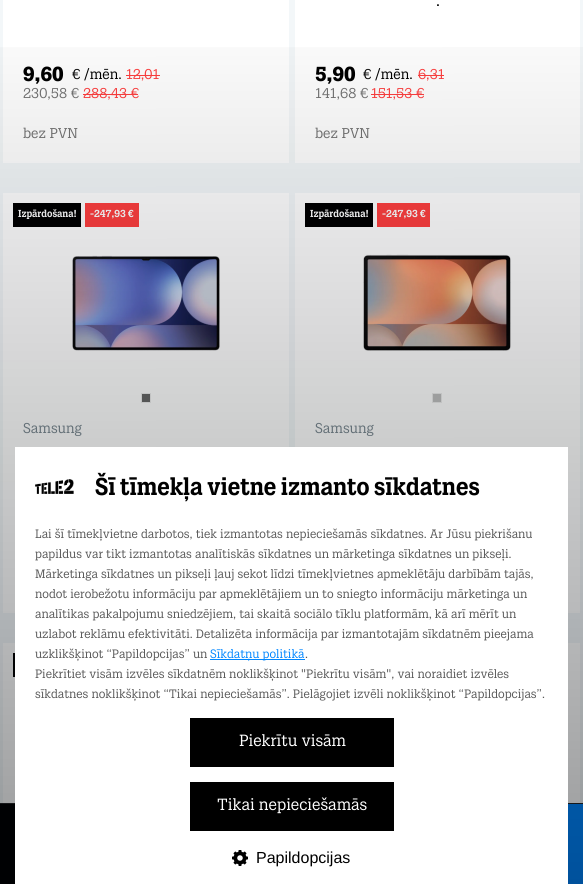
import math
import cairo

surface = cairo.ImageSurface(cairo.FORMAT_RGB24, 583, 884)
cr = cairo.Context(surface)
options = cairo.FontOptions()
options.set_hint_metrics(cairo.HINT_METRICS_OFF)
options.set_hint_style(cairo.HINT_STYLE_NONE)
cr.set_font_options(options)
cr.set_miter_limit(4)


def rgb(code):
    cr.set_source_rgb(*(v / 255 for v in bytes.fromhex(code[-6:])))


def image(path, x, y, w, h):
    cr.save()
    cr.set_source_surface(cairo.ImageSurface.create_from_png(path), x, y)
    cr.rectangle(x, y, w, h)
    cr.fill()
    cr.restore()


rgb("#f3f7f9")
cr.paint()
for x, y, w, h, color in [
    (3, 0, 286, 163, "#ffffff"),
    (126, 75, 34, 1, "#ff3f3f"),
    (83, 94, 55, 1, "#ff3f3f"),
    (295, 0, 285, 163, "#ffffff"),
    (418, 75, 26, 1, "#ff3f3f"),
    (371, 94, 53, 1, "#ff3f3f"),
    (3, 193, 286, 420, "#ffffff"),
    (13, 203, 68, 24, "#000000"),
    (85, 203, 54, 24, "#ff3f3f"),
]:
    rgb(color)
    cr.rectangle(x, y, w, h)
    cr.fill()
image("img/1.png", 72, 255, 148, 96)
rgb("#666666")
cr.rectangle(141.5, 393.5, 9, 9)
cr.fill_preserve()
rgb("#ececec")
cr.set_line_width(1)
cr.stroke()
for x, y, w, h, color in [
    (295, 193, 285, 420, "#ffffff"),
    (305, 203, 68, 24, "#000000"),
    (377, 203, 53, 24, "#ff3f3f"),
]:
    rgb(color)
    cr.rectangle(x, y, w, h)
    cr.fill()
image("img/2.png", 363, 254, 148, 97)
rgb("#c0c0c0")
cr.rectangle(432.5, 393.5, 9, 9)
cr.fill_preserve()
rgb("#ececec")
cr.stroke()
for x, y, w, h, color in [
    (3, 643, 12, 160, "#ffffff"),
    (13, 653, 2, 24, "#000000"),
    (568, 643, 12, 160, "#ffffff"),
    (0, 803, 583, 1, "#242424"),
    (0, 804, 15, 80, "#000000"),
    (568, 804, 15, 80, "#0086ff"),
]:
    rgb(color)
    cr.rectangle(x, y, w, h)
    cr.fill()
cr.select_font_face("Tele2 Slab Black")
cr.set_font_size(20)
rgb("#000000")
cr.move_to(23, 81)
cr.show_text("9,60")
cr.select_font_face("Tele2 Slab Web")
cr.set_font_size(14)
cr.move_to(72, 79)
cr.show_text("€ /mēn.")
rgb("#ff3f3f")
cr.move_to(126, 79)
cr.show_text("12,01")
rgb("#737373")
cr.move_to(23, 98)
cr.show_text("230,58 €")
rgb("#ff3f3f")
cr.move_to(83, 98)
cr.show_text("288,43 €")
rgb("#737373")
cr.move_to(23, 138)
cr.show_text("bez PVN")
cr.set_font_size(16)
rgb("#000000")
cr.move_to(436, 6)
cr.show_text(".")
cr.select_font_face("Tele2 Slab Black")
cr.set_font_size(20)
cr.move_to(315, 81)
cr.show_text("5,90")
cr.select_font_face("Tele2 Slab Web")
cr.set_font_size(14)
cr.move_to(363, 79)
cr.show_text("€ /mēn.")
rgb("#ff3f3f")
cr.move_to(418, 79)
cr.show_text("6,31")
rgb("#737373")
cr.move_to(315, 98)
cr.show_text("141,68 €")
rgb("#ff3f3f")
cr.move_to(371, 98)
cr.show_text("151,53 €")
rgb("#737373")
cr.move_to(315, 138)
cr.show_text("bez PVN")
cr.select_font_face("Tele2 Slab Web", cairo.FONT_SLANT_NORMAL, cairo.FONT_WEIGHT_BOLD)
cr.set_font_size(10)
rgb("#ffffff")
cr.move_to(18, 217)
cr.show_text("Izpārdošana!")
cr.move_to(90, 217)
cr.show_text("-247,93 €")
cr.select_font_face("Tele2 Slab Web")
cr.set_font_size(14)
rgb("#7a8891")
cr.move_to(23, 433)
cr.show_text("Samsung")
cr.select_font_face("Tele2 Slab Web", cairo.FONT_SLANT_NORMAL, cairo.FONT_WEIGHT_BOLD)
cr.set_font_size(10)
rgb("#ffffff")
cr.move_to(310, 217)
cr.show_text("Izpārdošana!")
cr.move_to(382, 217)
cr.show_text("-247,93 €")
cr.select_font_face("Tele2 Slab Web")
cr.set_font_size(14)
rgb("#7a8891")
cr.move_to(315, 433)
cr.show_text("Samsung")
gradient = cairo.LinearGradient(291, 0, 292, 884)
gradient.add_color_stop_rgba(0, 0, 0.012, 0.027, 0)
gradient.add_color_stop_rgba(1, 0, 0.012, 0.027, 0.4)
cr.set_source(gradient)
cr.rectangle(0, 47, 583, 837)
cr.fill()
rgb("#ffffff")
cr.rectangle(15, 447, 553, 437)
cr.fill()
cr.select_font_face("Tele2 Slab Web", cairo.FONT_SLANT_NORMAL, cairo.FONT_WEIGHT_BOLD)
cr.set_font_size(24)
rgb("#000000")
cr.move_to(95, 495)
cr.show_text("Šī tīmekļa vietne izmanto sīkdatnes")
cr.select_font_face("Tele2 Slab Web")
cr.set_font_size(12)
rgb("#595959")
for x, y, s in [
    (35, 538, "Lai šī tīmekļvietne darbotos, tiek izmantotas nepieciešamās sīkdatnes. Ar Jūsu piekrišanu"),
    (35, 558, "papildus var tikt izmantotas analītiskās sīkdatnes un mārketinga sīkdatnes un pikseļi."),
    (35, 578, "Mārketinga sīkdatnes un pikseļi ļauj sekot līdzi tīmekļvietnes apmeklētāju darbībām tajās,"),
    (35, 598, "nodot ierobežotu informāciju par apmeklētājiem un to sniegto informāciju mārketinga un"),
    (35, 618, "analītikas pakalpojumu sniedzējiem, tai skaitā sociālo tīklu platformām, kā arī mērīt un"),
    (35, 638, "uzlabot reklāmu efektivitāti. Detalizēta informācija par izmantotajām sīkdatnēm pieejama"),
    (35, 658, "uzklikšķinot “Papildopcijas” un"),
]:
    cr.move_to(x, y)
    cr.show_text(s)
rgb("#0086ff")
cr.rectangle(210, 659, 95, 1)
cr.fill()
cr.move_to(210, 658)
cr.show_text("Sīkdatņu politikā")
rgb("#595959")
for x, y, s in [
    (305, 658, "."),
    (35, 678, "Piekrītiet visām izvēles sīkdatnēm noklikšķinot \"Piekrītu visām\", vai noraidiet izvēles"),
    (35, 698, "sīkdatnes noklikšķinot “Tikai nepieciešamās”. Pielāgojiet izvēli noklikšķinot “Papildopcijas”."),
]:
    cr.move_to(x, y)
    cr.show_text(s)
image("img/3.png", 35, 479, 39, 15)
rgb("#000000")
cr.rectangle(190, 718, 204, 49)
cr.fill()
cr.set_font_size(16)
rgb("#ffffff")
cr.move_to(239, 746)
cr.show_text("Piekrītu visām")
rgb("#000000")
cr.rectangle(190, 782, 204, 49)
cr.fill()
rgb("#ffffff")
cr.move_to(217, 810)
cr.show_text("Tikai nepieciešamās")
image("img/4.png", 232, 850, 16, 16)
cr.select_font_face("Liberation Sans")
rgb("#000000")
cr.move_to(256, 863)
cr.show_text("Papildopcijas")
surface.write_to_png("page.png")
